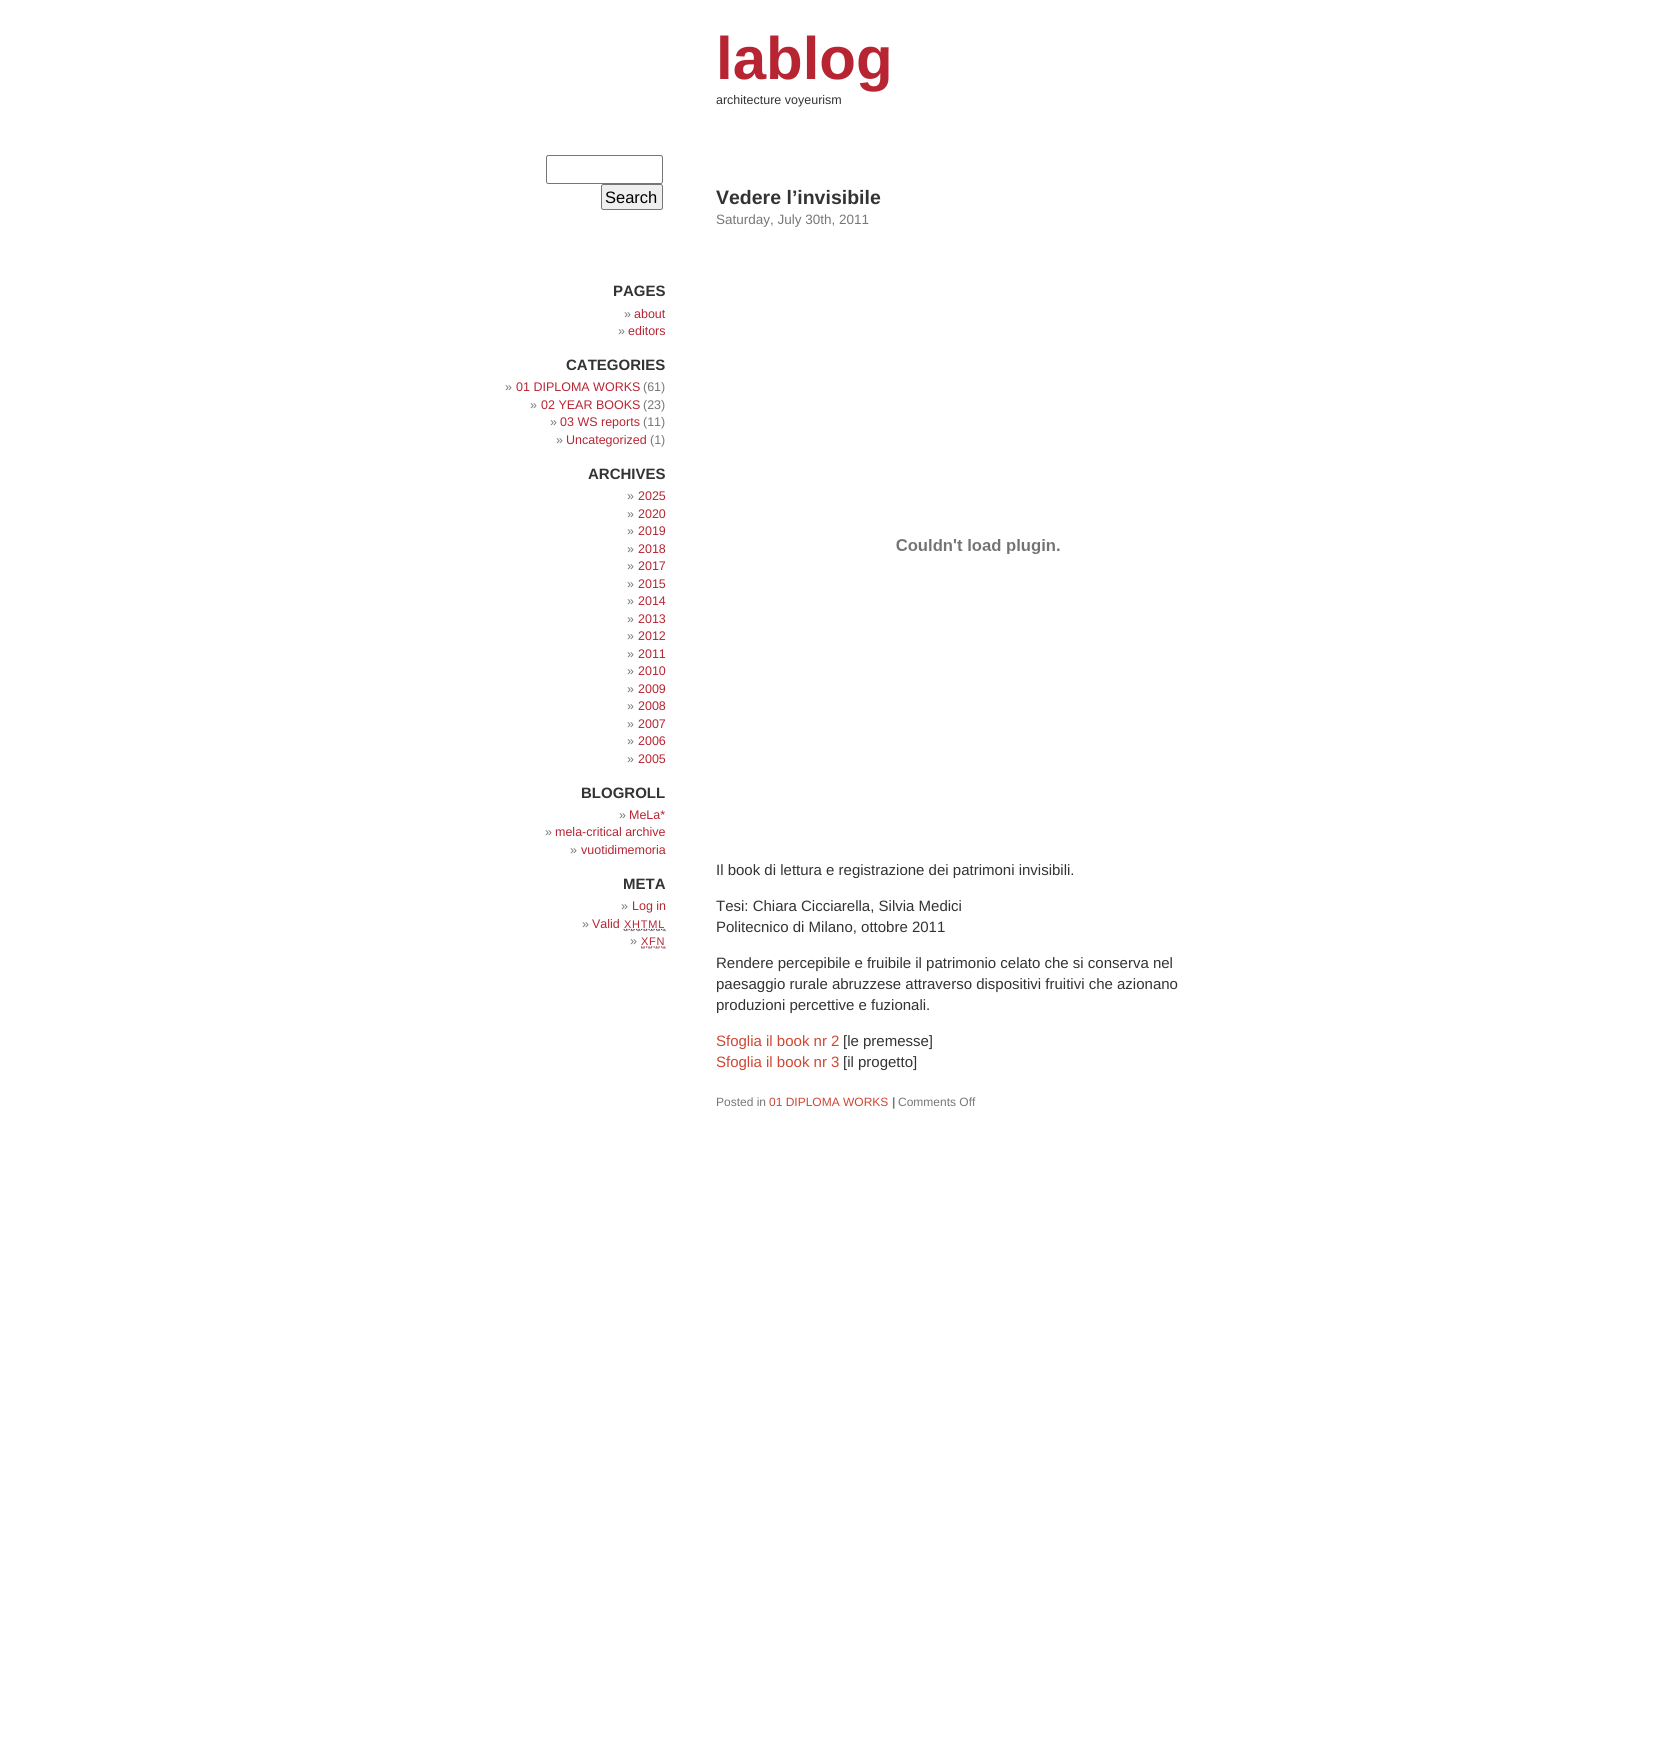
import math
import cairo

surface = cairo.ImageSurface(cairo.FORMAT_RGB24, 1656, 1742)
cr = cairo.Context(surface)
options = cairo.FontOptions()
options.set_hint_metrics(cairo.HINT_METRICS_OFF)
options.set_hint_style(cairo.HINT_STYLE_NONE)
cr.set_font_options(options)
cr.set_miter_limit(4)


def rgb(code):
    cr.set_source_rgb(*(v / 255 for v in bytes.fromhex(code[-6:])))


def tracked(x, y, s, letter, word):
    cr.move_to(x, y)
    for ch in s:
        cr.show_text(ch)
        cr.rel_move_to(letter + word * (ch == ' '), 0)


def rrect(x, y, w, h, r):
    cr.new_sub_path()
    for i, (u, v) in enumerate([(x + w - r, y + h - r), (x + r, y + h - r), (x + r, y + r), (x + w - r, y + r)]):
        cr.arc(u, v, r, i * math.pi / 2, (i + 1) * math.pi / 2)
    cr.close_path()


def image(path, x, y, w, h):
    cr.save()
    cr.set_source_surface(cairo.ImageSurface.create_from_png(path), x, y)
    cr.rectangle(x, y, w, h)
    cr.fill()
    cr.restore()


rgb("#ffffff")
cr.paint()
rrect(546.5, 155.5, 116, 28, 2)
rgb("#767676")
cr.set_line_width(1)
cr.stroke()
rgb("#efefef")
rrect(601.5, 184.5, 61, 25, 2)
cr.fill_preserve()
rgb("#767676")
cr.stroke()
cr.new_path()
cr.move_to(624, 930.5)
cr.line_to(666, 930.5)
rgb("#999999")
cr.set_line_width(1.2)
cr.set_dash([3.75, 2.71])
cr.stroke()
cr.new_path()
cr.move_to(623.5, 929.5)
cr.line_to(665.5, 929.5)
rgb("#b72533")
cr.set_dash([1.25, 1.25])
cr.stroke()
cr.new_path()
cr.move_to(641, 948)
cr.line_to(666, 948)
rgb("#999999")
cr.set_dash([3.75, 3.34])
cr.stroke()
cr.new_path()
cr.move_to(641, 947)
cr.line_to(665.5, 947)
rgb("#b72533")
cr.set_dash([1.25, 1.25])
cr.stroke()
image("img/1.png", 896, 539, 164, 15)
cr.select_font_face("Liberation Sans", cairo.FONT_SLANT_NORMAL, cairo.FONT_WEIGHT_BOLD)
cr.set_font_size(60)
cr.move_to(716, 79)
cr.show_text("lablog")
cr.select_font_face("Liberation Sans")
cr.set_font_size(12.5)
rgb("#333333")
cr.move_to(716, 104)
cr.show_text("architecture voyeurism")
cr.set_font_size(16.5)
rgb("#000000")
cr.move_to(605, 203)
cr.show_text("Search")
cr.select_font_face("Liberation Sans", cairo.FONT_SLANT_NORMAL, cairo.FONT_WEIGHT_BOLD)
cr.set_font_size(15)
rgb("#333333")
cr.move_to(613, 296)
cr.show_text("PAGES")
cr.select_font_face("Liberation Sans")
cr.set_font_size(12.5)
rgb("#777777")
cr.move_to(624, 318)
cr.show_text("»")
rgb("#b72533")
cr.move_to(634, 318)
cr.show_text("about")
rgb("#777777")
cr.move_to(618, 335)
cr.show_text("»")
rgb("#b72533")
cr.move_to(628, 335)
cr.show_text("editors")
cr.select_font_face("Liberation Sans", cairo.FONT_SLANT_NORMAL, cairo.FONT_WEIGHT_BOLD)
cr.set_font_size(15)
rgb("#333333")
cr.move_to(566, 370)
cr.show_text("CATEGORIES")
cr.select_font_face("Liberation Sans")
cr.set_font_size(12.5)
rgb("#777777")
cr.move_to(505, 391)
cr.show_text("»")
rgb("#b72533")
cr.move_to(516, 391)
cr.show_text("01 DIPLOMA WORKS")
rgb("#777777")
cr.move_to(643, 391)
cr.show_text("(61)")
cr.move_to(530, 409)
cr.show_text("»")
rgb("#b72533")
cr.move_to(541, 409)
cr.show_text("02 YEAR BOOKS")
rgb("#777777")
cr.move_to(643, 409)
cr.show_text("(23)")
cr.move_to(550, 426)
cr.show_text("»")
rgb("#b72533")
cr.move_to(560, 426)
cr.show_text("03 WS reports")
rgb("#777777")
cr.move_to(643, 426)
cr.show_text("(11)")
cr.move_to(556, 444)
cr.show_text("»")
rgb("#b72533")
cr.move_to(566, 444)
cr.show_text("Uncategorized")
rgb("#777777")
cr.move_to(650, 444)
cr.show_text("(1)")
cr.select_font_face("Liberation Sans", cairo.FONT_SLANT_NORMAL, cairo.FONT_WEIGHT_BOLD)
cr.set_font_size(15)
rgb("#333333")
cr.move_to(588, 479)
cr.show_text("ARCHIVES")
cr.select_font_face("Liberation Sans")
cr.set_font_size(12.5)
rgb("#777777")
cr.move_to(627, 500)
cr.show_text("»")
rgb("#b72533")
cr.move_to(638, 500)
cr.show_text("2025")
rgb("#777777")
cr.move_to(627, 518)
cr.show_text("»")
rgb("#b72533")
cr.move_to(638, 518)
cr.show_text("2020")
rgb("#777777")
cr.move_to(627, 535)
cr.show_text("»")
rgb("#b72533")
cr.move_to(638, 535)
cr.show_text("2019")
rgb("#777777")
cr.move_to(627, 553)
cr.show_text("»")
rgb("#b72533")
cr.move_to(638, 553)
cr.show_text("2018")
rgb("#777777")
cr.move_to(627, 570)
cr.show_text("»")
rgb("#b72533")
cr.move_to(638, 570)
cr.show_text("2017")
rgb("#777777")
cr.move_to(627, 588)
cr.show_text("»")
rgb("#b72533")
cr.move_to(638, 588)
cr.show_text("2015")
rgb("#777777")
cr.move_to(627, 605)
cr.show_text("»")
rgb("#b72533")
cr.move_to(638, 605)
cr.show_text("2014")
rgb("#777777")
cr.move_to(627, 623)
cr.show_text("»")
rgb("#b72533")
cr.move_to(638, 623)
cr.show_text("2013")
rgb("#777777")
cr.move_to(627, 640)
cr.show_text("»")
rgb("#b72533")
cr.move_to(638, 640)
cr.show_text("2012")
rgb("#777777")
cr.move_to(627, 658)
cr.show_text("»")
rgb("#b72533")
cr.move_to(638, 658)
cr.show_text("2011")
rgb("#777777")
cr.move_to(627, 675)
cr.show_text("»")
rgb("#b72533")
cr.move_to(638, 675)
cr.show_text("2010")
rgb("#777777")
cr.move_to(627, 693)
cr.show_text("»")
rgb("#b72533")
cr.move_to(638, 693)
cr.show_text("2009")
rgb("#777777")
cr.move_to(627, 710)
cr.show_text("»")
rgb("#b72533")
cr.move_to(638, 710)
cr.show_text("2008")
rgb("#777777")
cr.move_to(627, 728)
cr.show_text("»")
rgb("#b72533")
cr.move_to(638, 728)
cr.show_text("2007")
rgb("#777777")
cr.move_to(627, 745)
cr.show_text("»")
rgb("#b72533")
cr.move_to(638, 745)
cr.show_text("2006")
rgb("#777777")
cr.move_to(627, 763)
cr.show_text("»")
rgb("#b72533")
cr.move_to(638, 763)
cr.show_text("2005")
cr.select_font_face("Liberation Sans", cairo.FONT_SLANT_NORMAL, cairo.FONT_WEIGHT_BOLD)
cr.set_font_size(15)
rgb("#333333")
cr.move_to(581, 798)
cr.show_text("BLOGROLL")
cr.select_font_face("Liberation Sans")
cr.set_font_size(12.5)
rgb("#777777")
cr.move_to(619, 819)
cr.show_text("»")
rgb("#b72533")
cr.move_to(629, 819)
cr.show_text("MeLa*")
rgb("#777777")
cr.move_to(545, 836)
cr.show_text("»")
rgb("#b72533")
cr.move_to(555, 836)
cr.show_text("mela-critical archive")
rgb("#777777")
cr.move_to(570, 854)
cr.show_text("»")
rgb("#b72533")
cr.move_to(581, 854)
cr.show_text("vuotidimemoria")
cr.select_font_face("Liberation Sans", cairo.FONT_SLANT_NORMAL, cairo.FONT_WEIGHT_BOLD)
cr.set_font_size(15)
rgb("#333333")
cr.move_to(623, 889)
cr.show_text("META")
cr.select_font_face("Liberation Sans")
cr.set_font_size(12.5)
rgb("#777777")
cr.move_to(621, 910)
cr.show_text("»")
rgb("#b72533")
cr.move_to(632, 910)
cr.show_text("Log in")
rgb("#777777")
cr.move_to(582, 928)
cr.show_text("»")
rgb("#b72533")
cr.move_to(592, 928)
cr.show_text("Valid")
cr.set_font_size(11)
tracked(624, 928, "XHTML", 0.75, 0)
cr.set_font_size(12.5)
rgb("#777777")
cr.move_to(630, 945)
cr.show_text("»")
cr.set_font_size(11)
rgb("#b72533")
tracked(641, 945, "XFN", 0.75, 0)
cr.select_font_face("Liberation Sans", cairo.FONT_SLANT_NORMAL, cairo.FONT_WEIGHT_BOLD)
cr.set_font_size(19.5)
rgb("#333333")
cr.move_to(716, 204)
cr.show_text("Vedere l’invisibile")
cr.select_font_face("Liberation Sans")
cr.set_font_size(13.5)
rgb("#777777")
cr.move_to(716, 224)
cr.show_text("Saturday, July 30th, 2011")
cr.set_font_size(15)
rgb("#333333")
for x, y, s in [
    (716, 875, "Il book di lettura e registrazione dei patrimoni invisibili."),
    (716, 911, "Tesi: Chiara Cicciarella, Silvia Medici"),
    (716, 932, "Politecnico di Milano, ottobre 2011"),
    (716, 968, "Rendere percepibile e fruibile il patrimonio celato che si conserva nel"),
    (716, 989, "paesaggio rurale abruzzese attraverso dispositivi fruitivi che azionano"),
    (716, 1010, "produzioni percettive e fuzionali."),
]:
    cr.move_to(x, y)
    cr.show_text(s)
rgb("#ce4733")
cr.move_to(716, 1046)
cr.show_text("Sfoglia il book nr 2")
rgb("#333333")
cr.move_to(843, 1046)
cr.show_text("[le premesse]")
rgb("#ce4733")
cr.move_to(716, 1067)
cr.show_text("Sfoglia il book nr 3")
rgb("#333333")
cr.move_to(843, 1067)
cr.show_text("[il progetto]")
cr.set_font_size(12)
rgb("#777777")
cr.move_to(716, 1106)
cr.show_text("Posted in")
rgb("#ce4733")
cr.move_to(769, 1106)
cr.show_text("01 DIPLOMA WORKS")
cr.select_font_face("Liberation Sans", cairo.FONT_SLANT_NORMAL, cairo.FONT_WEIGHT_BOLD)
rgb("#777777")
cr.move_to(892, 1106)
cr.show_text("|")
cr.select_font_face("Liberation Sans")
cr.move_to(898, 1106)
cr.show_text("Comments Off")
surface.write_to_png("page.png")
